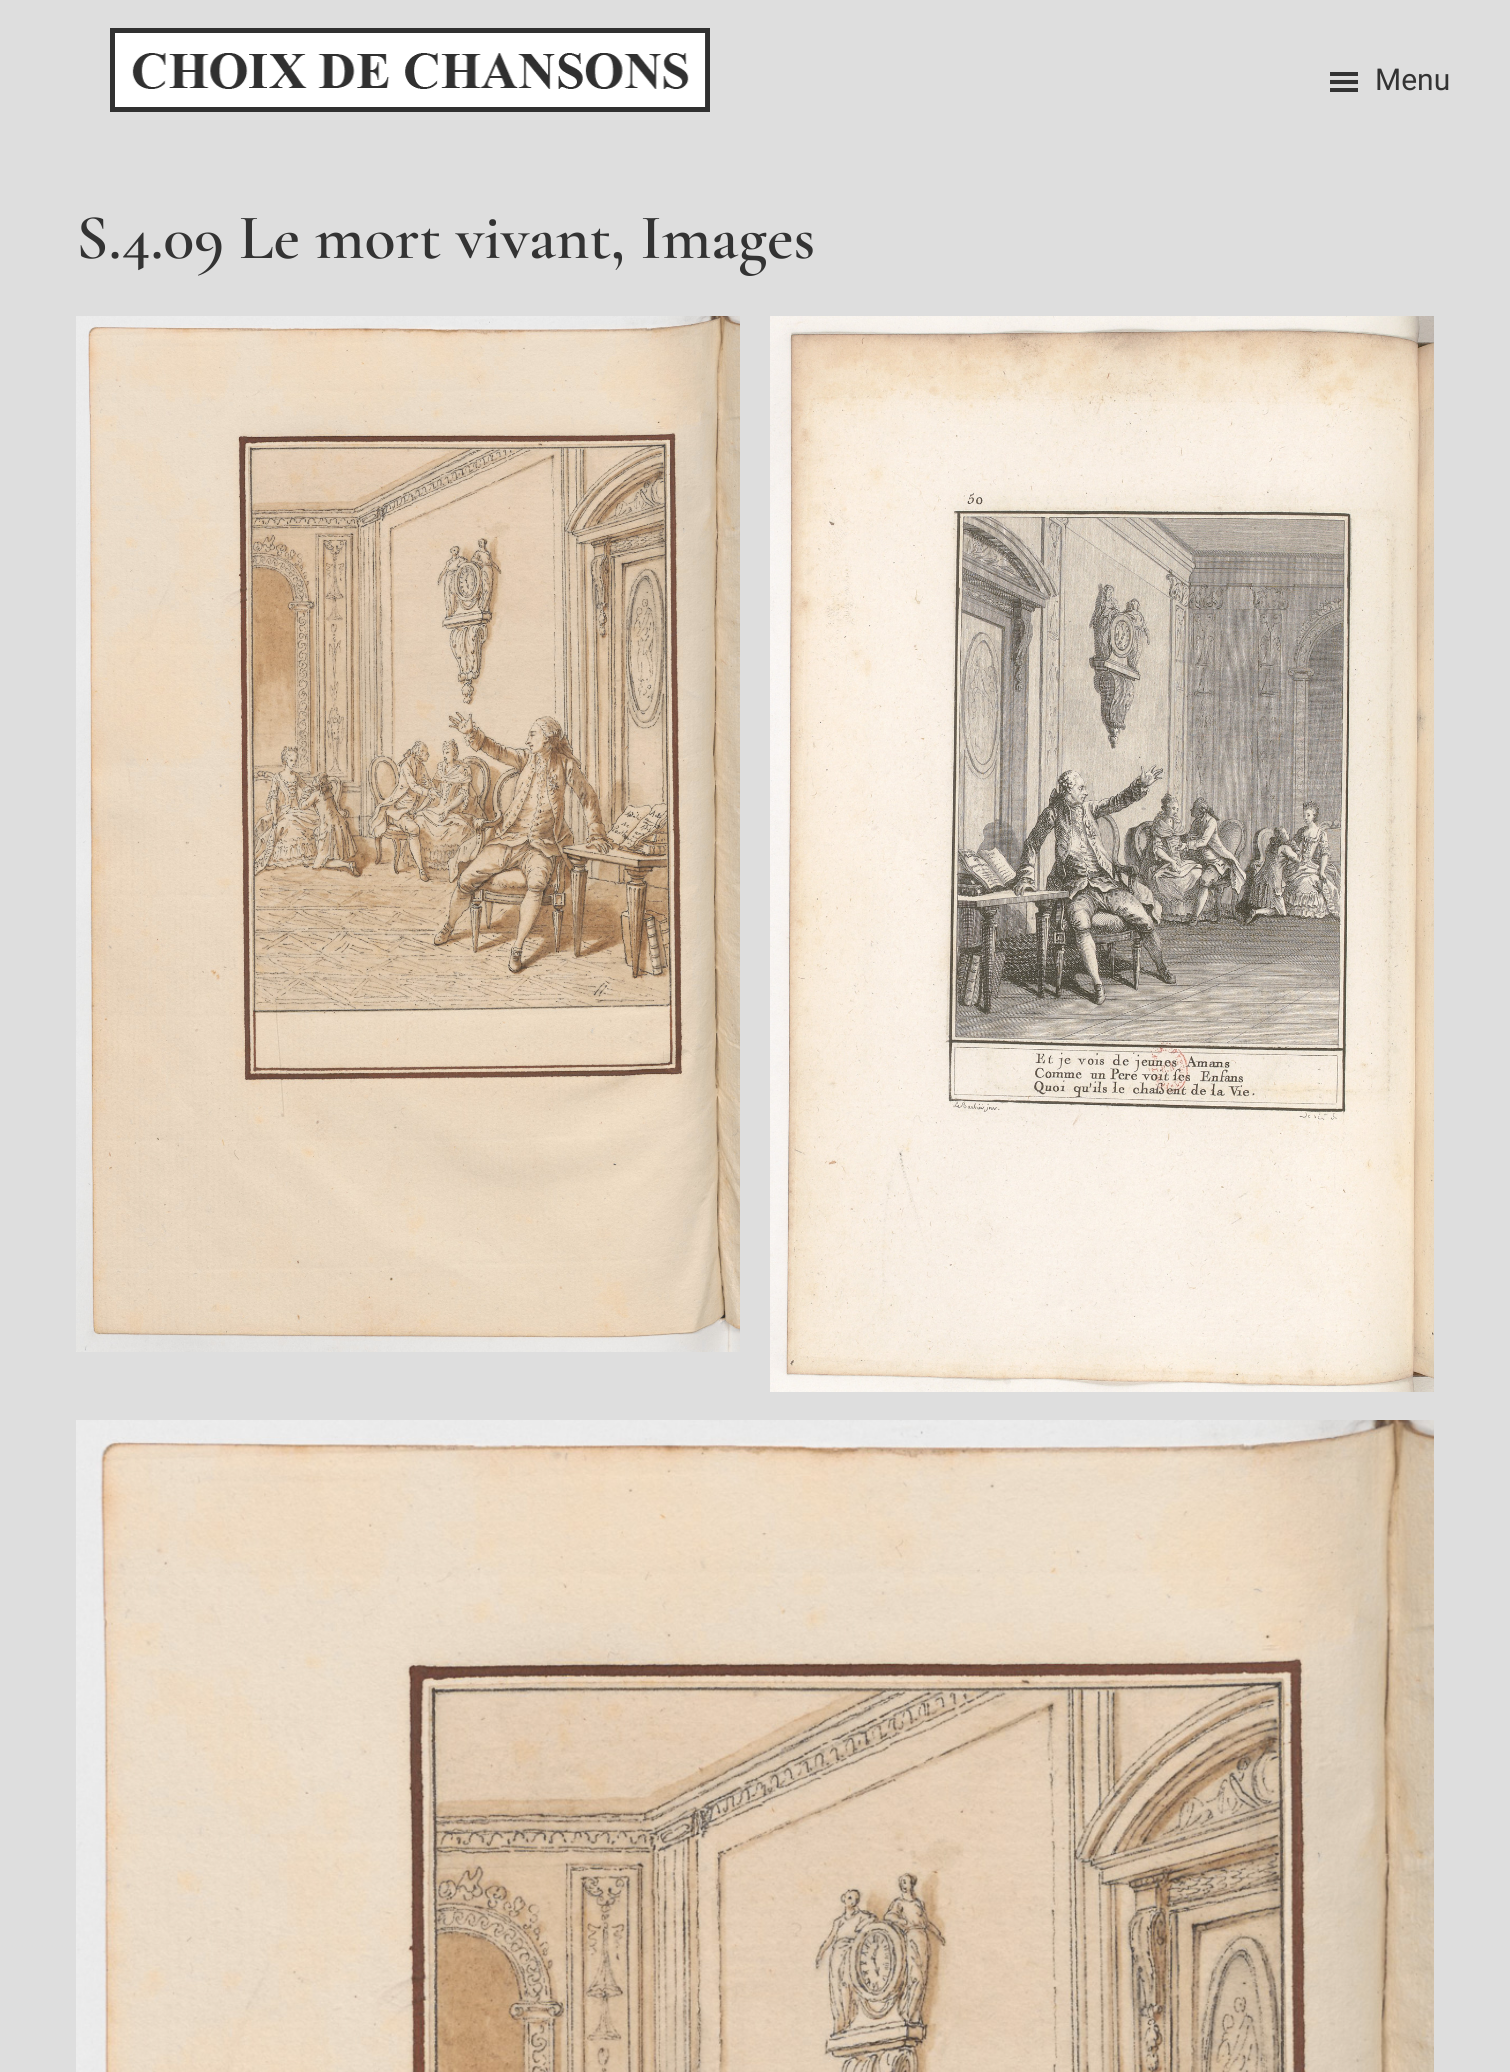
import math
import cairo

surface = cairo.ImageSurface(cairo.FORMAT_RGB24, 1510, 2072)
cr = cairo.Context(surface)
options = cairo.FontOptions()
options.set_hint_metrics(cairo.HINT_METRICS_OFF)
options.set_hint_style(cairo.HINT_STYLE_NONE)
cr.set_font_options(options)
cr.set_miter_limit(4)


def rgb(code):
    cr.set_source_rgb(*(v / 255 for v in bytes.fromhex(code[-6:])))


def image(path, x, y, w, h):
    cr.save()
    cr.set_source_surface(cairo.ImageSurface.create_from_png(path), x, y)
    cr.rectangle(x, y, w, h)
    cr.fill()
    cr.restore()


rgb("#dedede")
cr.paint()
image("img/1.png", 110, 28, 600, 84)
image("img/2.png", 1330, 72, 28, 20)
image("img/3.png", 76, 316, 664, 1036)
image("img/4.png", 770, 316, 664, 1076)
image("img/5.png", 76, 1420, 1358, 652)
cr.select_font_face("Roboto")
cr.set_font_size(30)
rgb("#333333")
cr.move_to(1375, 90)
cr.show_text("Menu")
cr.select_font_face("Cormorant Garamond SemiBold")
cr.set_font_size(64)
cr.move_to(76, 258)
cr.show_text("S.4.09 Le mort vivant, Images")
surface.write_to_png("page.png")
